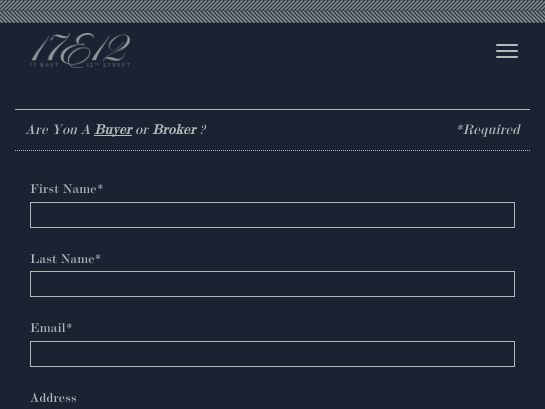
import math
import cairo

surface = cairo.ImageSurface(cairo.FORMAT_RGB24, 545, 409)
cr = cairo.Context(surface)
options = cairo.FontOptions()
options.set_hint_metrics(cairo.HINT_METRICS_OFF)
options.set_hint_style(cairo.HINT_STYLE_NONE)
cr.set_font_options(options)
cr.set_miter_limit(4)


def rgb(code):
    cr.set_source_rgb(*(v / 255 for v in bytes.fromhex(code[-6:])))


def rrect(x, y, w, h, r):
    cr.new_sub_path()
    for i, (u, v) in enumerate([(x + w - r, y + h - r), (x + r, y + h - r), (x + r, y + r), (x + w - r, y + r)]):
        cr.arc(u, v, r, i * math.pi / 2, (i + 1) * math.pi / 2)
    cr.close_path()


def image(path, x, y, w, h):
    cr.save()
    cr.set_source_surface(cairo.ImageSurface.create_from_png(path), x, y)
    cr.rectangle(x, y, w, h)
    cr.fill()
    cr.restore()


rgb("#1b2332")
cr.paint()
image("img/1.png", 0, 0, 545, 23)
image("img/2.png", 30, 33, 100, 35)
rgb("#afbab9")
rrect(496, 44, 22, 2, 1)
cr.fill()
rrect(496, 50, 22, 2, 1)
cr.fill()
rrect(496, 56, 22, 2, 1)
cr.fill()
cr.rectangle(15, 109, 515, 1)
cr.fill()
cr.new_path()
cr.move_to(15, 150.5)
cr.line_to(530, 150.5)
cr.set_line_width(1)
cr.set_dash([1, 1])
cr.stroke()
cr.rectangle(94, 135, 38, 1)
cr.fill()
cr.rectangle(30.5, 202.5, 484, 25)
cr.set_dash([])
cr.stroke()
cr.rectangle(30.5, 271.5, 484, 25)
cr.stroke()
cr.rectangle(30.5, 341.5, 484, 25)
cr.stroke()
cr.select_font_face("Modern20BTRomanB", cairo.FONT_SLANT_ITALIC)
cr.set_font_size(14)
cr.move_to(25, 134)
cr.show_text("Are You A")
cr.select_font_face("Modern20BTRomanB", cairo.FONT_SLANT_ITALIC, cairo.FONT_WEIGHT_BOLD)
cr.move_to(94, 134)
cr.show_text("Buyer")
cr.select_font_face("Modern20BTRomanB", cairo.FONT_SLANT_ITALIC)
cr.move_to(135, 134)
cr.show_text("or")
cr.select_font_face("Modern20BTRomanB", cairo.FONT_SLANT_ITALIC, cairo.FONT_WEIGHT_BOLD)
cr.move_to(152, 134)
cr.show_text("Broker")
cr.select_font_face("Modern20BTRomanB", cairo.FONT_SLANT_ITALIC)
cr.move_to(199, 134)
cr.show_text("?")
cr.move_to(455, 134)
cr.show_text("*Required")
cr.select_font_face("Modern20BTRomanB")
cr.set_font_size(13)
for x, y, s in [
    (30, 193, "First Name*"),
    (30, 263, "Last Name*"),
    (30, 332, "Email*"),
    (30, 402, "Address"),
]:
    cr.move_to(x, y)
    cr.show_text(s)
surface.write_to_png("page.png")
